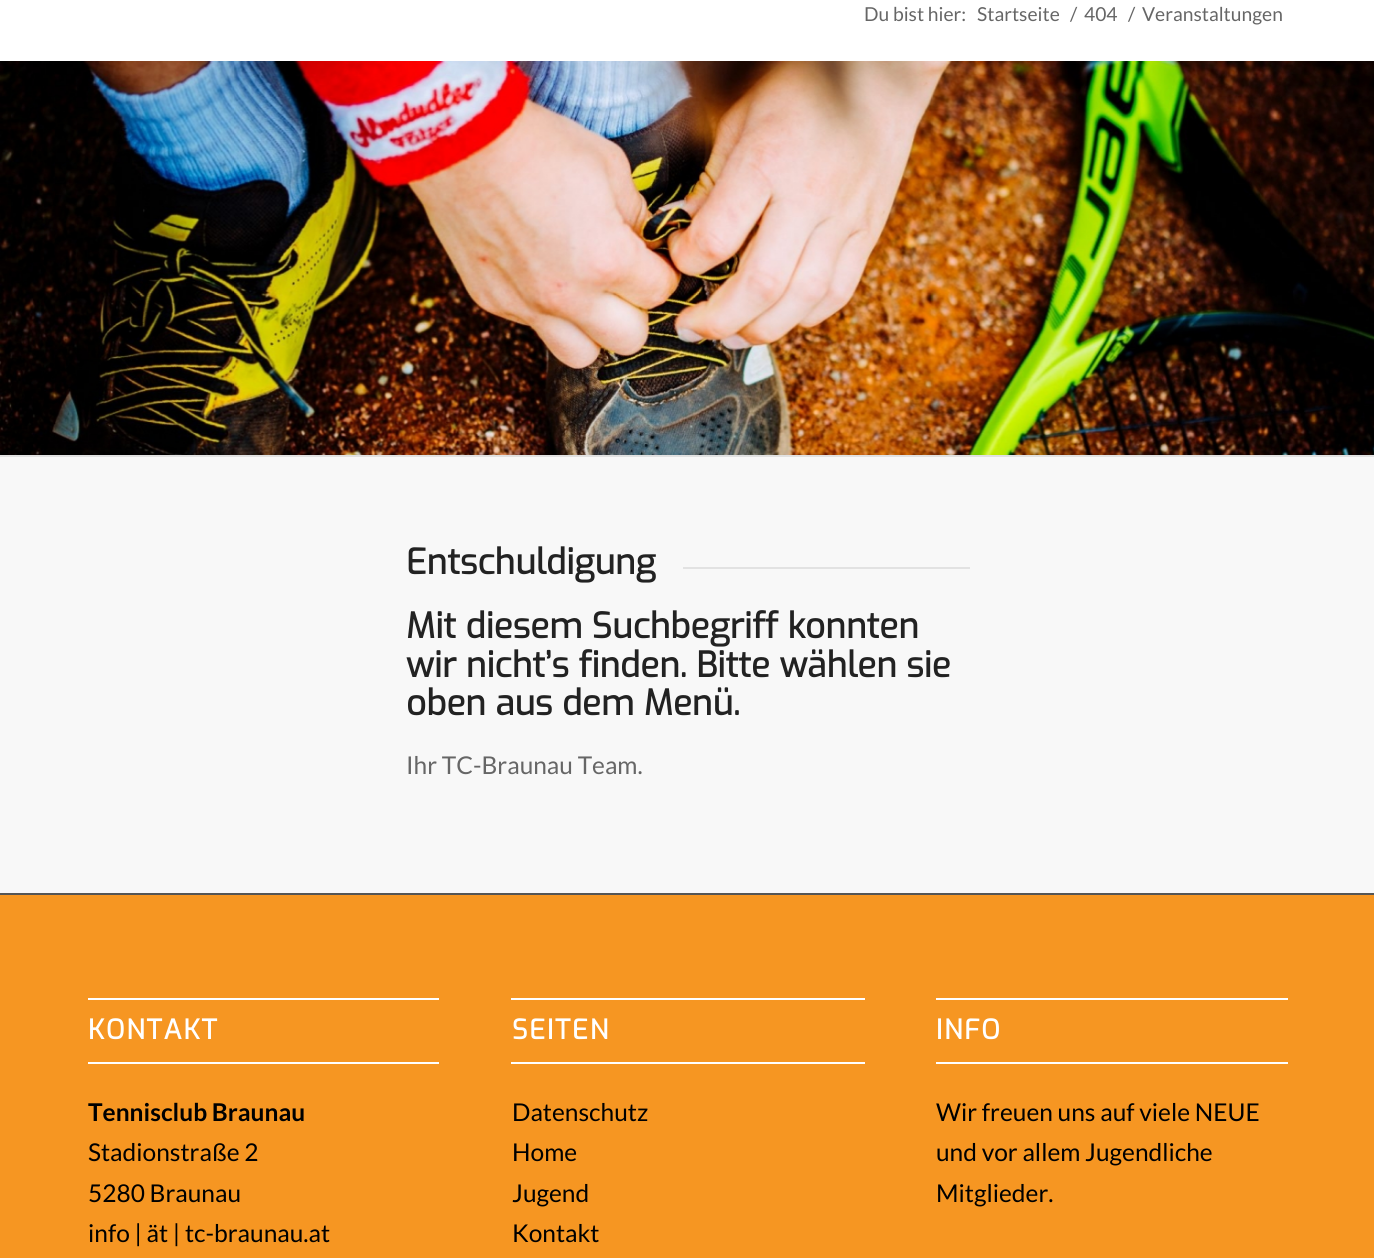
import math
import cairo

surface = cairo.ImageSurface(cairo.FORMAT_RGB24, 1374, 1258)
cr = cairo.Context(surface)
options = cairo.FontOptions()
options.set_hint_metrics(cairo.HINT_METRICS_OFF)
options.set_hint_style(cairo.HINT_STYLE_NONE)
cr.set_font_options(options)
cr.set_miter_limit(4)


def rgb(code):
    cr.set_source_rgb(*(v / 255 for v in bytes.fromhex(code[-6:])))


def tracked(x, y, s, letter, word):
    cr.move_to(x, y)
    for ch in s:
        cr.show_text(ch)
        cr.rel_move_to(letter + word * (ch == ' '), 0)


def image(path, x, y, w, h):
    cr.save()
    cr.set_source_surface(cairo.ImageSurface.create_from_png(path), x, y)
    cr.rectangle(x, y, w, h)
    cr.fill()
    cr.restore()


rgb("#ffffff")
cr.paint()
image("img/1.png", 0, 61, 1374, 394)
for x, y, w, h, color in [
    (0, 457, 1374, 436, "#f8f8f8"),
    (0, 455, 1374, 2, "#e1e1e1"),
    (683, 567, 287, 2, "#e2e2e2"),
    (0, 895, 1374, 363, "#f69622"),
    (0, 893, 1374, 2, "#555555"),
    (88, 998, 351, 2, "#ffffff"),
    (88, 1062, 351, 2, "#ffffff"),
    (511, 998, 354, 2, "#ffffff"),
    (511, 1062, 354, 2, "#ffffff"),
    (936, 998, 352, 2, "#ffffff"),
    (936, 1062, 352, 2, "#ffffff"),
]:
    rgb(color)
    cr.rectangle(x, y, w, h)
    cr.fill()
cr.select_font_face("Lato")
cr.set_font_size(19.25)
rgb("#666666")
for x, y, s in [
    (864, 21, "Du bist hier:"),
    (977, 21, "Startseite"),
    (1070, 21, "/"),
    (1084, 21, "404"),
    (1128, 21, "/"),
    (1142, 21, "Veranstaltungen"),
]:
    cr.move_to(x, y)
    cr.show_text(s)
cr.select_font_face("Exo", cairo.FONT_SLANT_NORMAL, cairo.FONT_WEIGHT_BOLD)
cr.set_font_size(35)
rgb("#222222")
for x, y, s in [
    (406, 574, "Entschuldigung"),
    (406, 638, "Mit diesem Suchbegriff konnten"),
    (406, 677, "wir nicht’s finden. Bitte wählen sie"),
    (406, 715, "oben aus dem Menü."),
]:
    cr.move_to(x, y)
    cr.show_text(s)
cr.select_font_face("Lato")
cr.set_font_size(24.5)
rgb("#666666")
cr.move_to(406, 774)
cr.show_text("Ihr TC-Braunau Team.")
cr.select_font_face("Exo", cairo.FONT_SLANT_NORMAL, cairo.FONT_WEIGHT_BOLD)
cr.set_font_size(27)
rgb("#ffffff")
tracked(88, 1039, "KONTAKT", 1.75, 0)
cr.save()
cr.rectangle(88, 973, 351, 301)
cr.clip()
cr.select_font_face("Lato", cairo.FONT_SLANT_NORMAL, cairo.FONT_WEIGHT_BOLD)
cr.set_font_size(24.5)
rgb("#000000")
cr.move_to(88, 1121)
cr.show_text("Tennisclub Braunau")
cr.restore()
cr.select_font_face("Lato")
cr.set_font_size(24.5)
rgb("#000000")
for x, y, s in [
    (88, 1161, "Stadionstraße 2"),
    (88, 1202, "5280 Braunau"),
    (88, 1242, "info | ät | tc-braunau.at"),
]:
    cr.move_to(x, y)
    cr.show_text(s)
cr.select_font_face("Exo", cairo.FONT_SLANT_NORMAL, cairo.FONT_WEIGHT_BOLD)
cr.set_font_size(27)
rgb("#ffffff")
tracked(512, 1039, "SEITEN", 1.75, 0)
cr.select_font_face("Lato")
cr.set_font_size(24.5)
rgb("#000000")
for x, y, s in [
    (512, 1121, "Datenschutz"),
    (512, 1161, "Home"),
    (512, 1202, "Jugend"),
    (512, 1242, "Kontakt"),
]:
    cr.move_to(x, y)
    cr.show_text(s)
cr.select_font_face("Exo", cairo.FONT_SLANT_NORMAL, cairo.FONT_WEIGHT_BOLD)
cr.set_font_size(27)
rgb("#ffffff")
tracked(936, 1039, "INFO", 1.75, 0)
cr.select_font_face("Lato")
cr.set_font_size(24.5)
rgb("#000000")
for x, y, s in [
    (936, 1121, "Wir freuen uns auf viele NEUE"),
    (936, 1161, "und vor allem Jugendliche"),
    (936, 1202, "Mitglieder."),
]:
    cr.move_to(x, y)
    cr.show_text(s)
surface.write_to_png("page.png")
